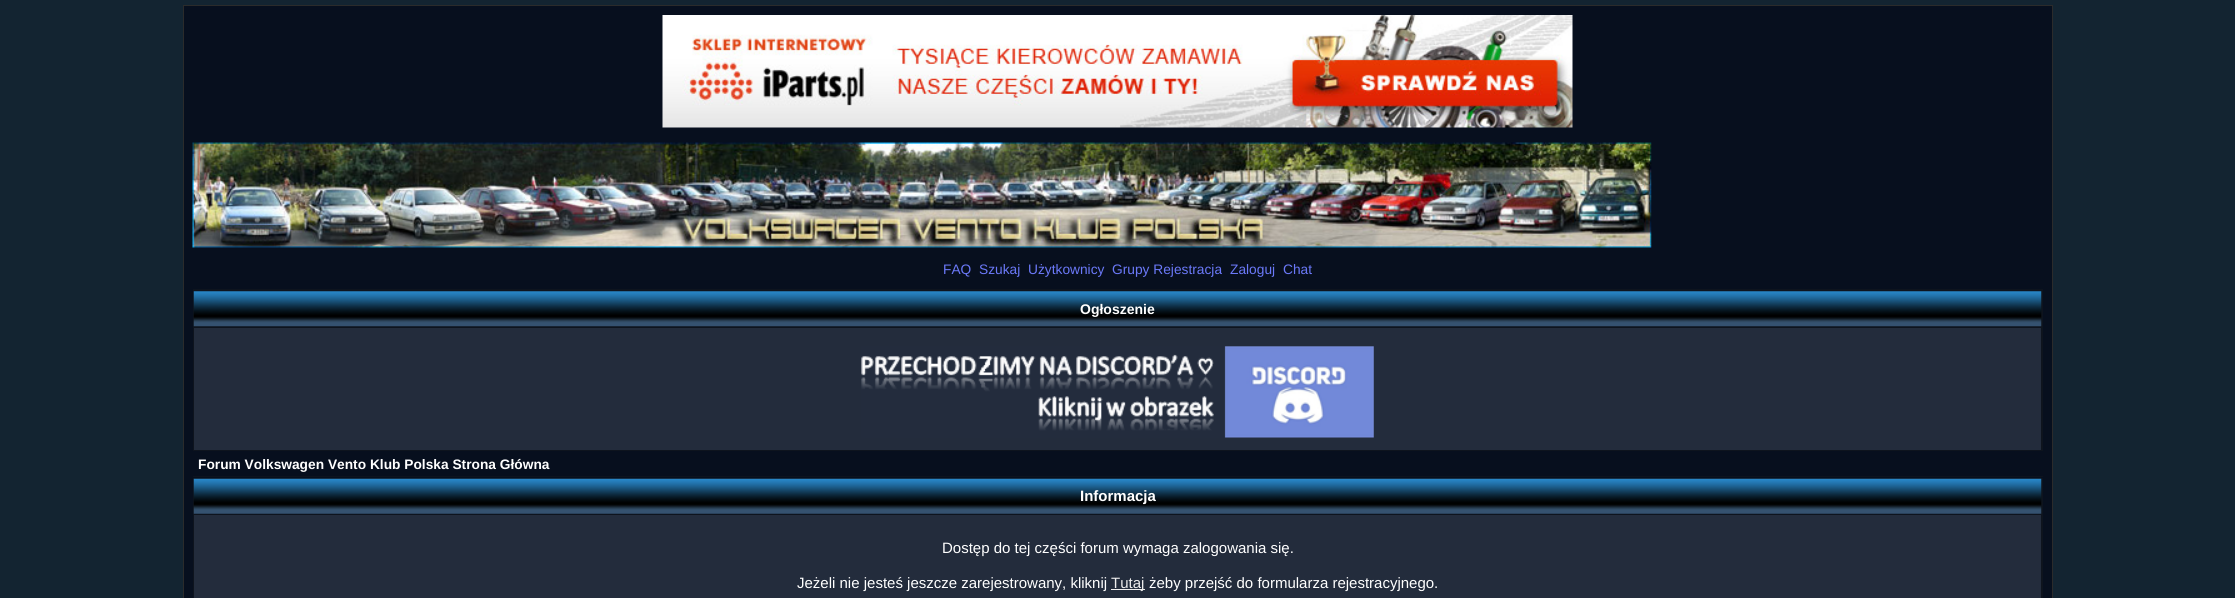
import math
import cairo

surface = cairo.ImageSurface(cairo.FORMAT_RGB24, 2235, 598)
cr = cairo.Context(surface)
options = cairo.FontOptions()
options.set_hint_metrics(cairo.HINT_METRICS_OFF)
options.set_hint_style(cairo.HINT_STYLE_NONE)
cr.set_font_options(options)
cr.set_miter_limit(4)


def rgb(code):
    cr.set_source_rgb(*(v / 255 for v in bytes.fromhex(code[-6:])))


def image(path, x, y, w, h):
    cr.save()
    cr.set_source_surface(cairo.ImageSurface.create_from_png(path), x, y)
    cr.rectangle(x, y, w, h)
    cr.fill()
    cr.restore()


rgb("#132431")
cr.paint()
rgb("#070f1e")
cr.rectangle(183.5, 5.5, 1869, 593)
cr.fill_preserve()
rgb("#2b2b2b")
cr.set_line_width(1)
cr.stroke()
image("img/1.png", 662, 15, 911, 113)
image("img/2.png", 192, 142, 1460, 106)
rgb("#0e141e")
cr.rectangle(193, 289, 1850, 162)
cr.fill()
image("img/3.png", 193, 291, 1849, 36)
rgb("#232c3c")
cr.rectangle(194, 328, 1847, 122)
cr.fill()
image("img/4.png", 861, 346, 513, 92)
rgb("#0e141e")
cr.rectangle(193, 478, 1850, 120)
cr.fill()
cr.rectangle(193, 476, 1850, 1)
cr.fill()
image("img/5.png", 193, 478, 1849, 36)
rgb("#232c3c")
cr.rectangle(194, 515, 1847, 83)
cr.fill()
rgb("#ededed")
cr.rectangle(1111, 589, 34, 1)
cr.fill()
cr.select_font_face("Liberation Sans")
cr.set_font_size(13.75)
rgb("#6b79f9")
for x, y, s in [
    (943, 274, "FAQ"),
    (979, 274, "Szukaj"),
    (1028, 274, "Użytkownicy"),
    (1112, 274, "Grupy Rejestracja"),
    (1230, 274, "Zaloguj"),
    (1283, 274, "Chat"),
]:
    cr.move_to(x, y)
    cr.show_text(s)
cr.select_font_face("Liberation Sans", cairo.FONT_SLANT_NORMAL, cairo.FONT_WEIGHT_BOLD)
cr.set_font_size(14)
rgb("#ffffff")
cr.move_to(1080, 314)
cr.show_text("Ogłoszenie")
cr.set_font_size(13.75)
cr.move_to(198, 469)
cr.show_text("Forum Volkswagen Vento Klub Polska Strona Główna")
cr.set_font_size(15)
cr.move_to(1080, 501)
cr.show_text("Informacja")
cr.select_font_face("Liberation Sans")
cr.move_to(942, 553)
cr.show_text("Dostęp do tej części forum wymaga zalogowania się.")
cr.move_to(797, 588)
cr.show_text("Jeżeli nie jesteś jeszcze zarejestrowany, kliknij")
rgb("#ededed")
cr.move_to(1111, 588)
cr.show_text("Tutaj")
rgb("#ffffff")
cr.move_to(1149, 588)
cr.show_text("żeby przejść do formularza rejestracyjnego.")
surface.write_to_png("page.png")
